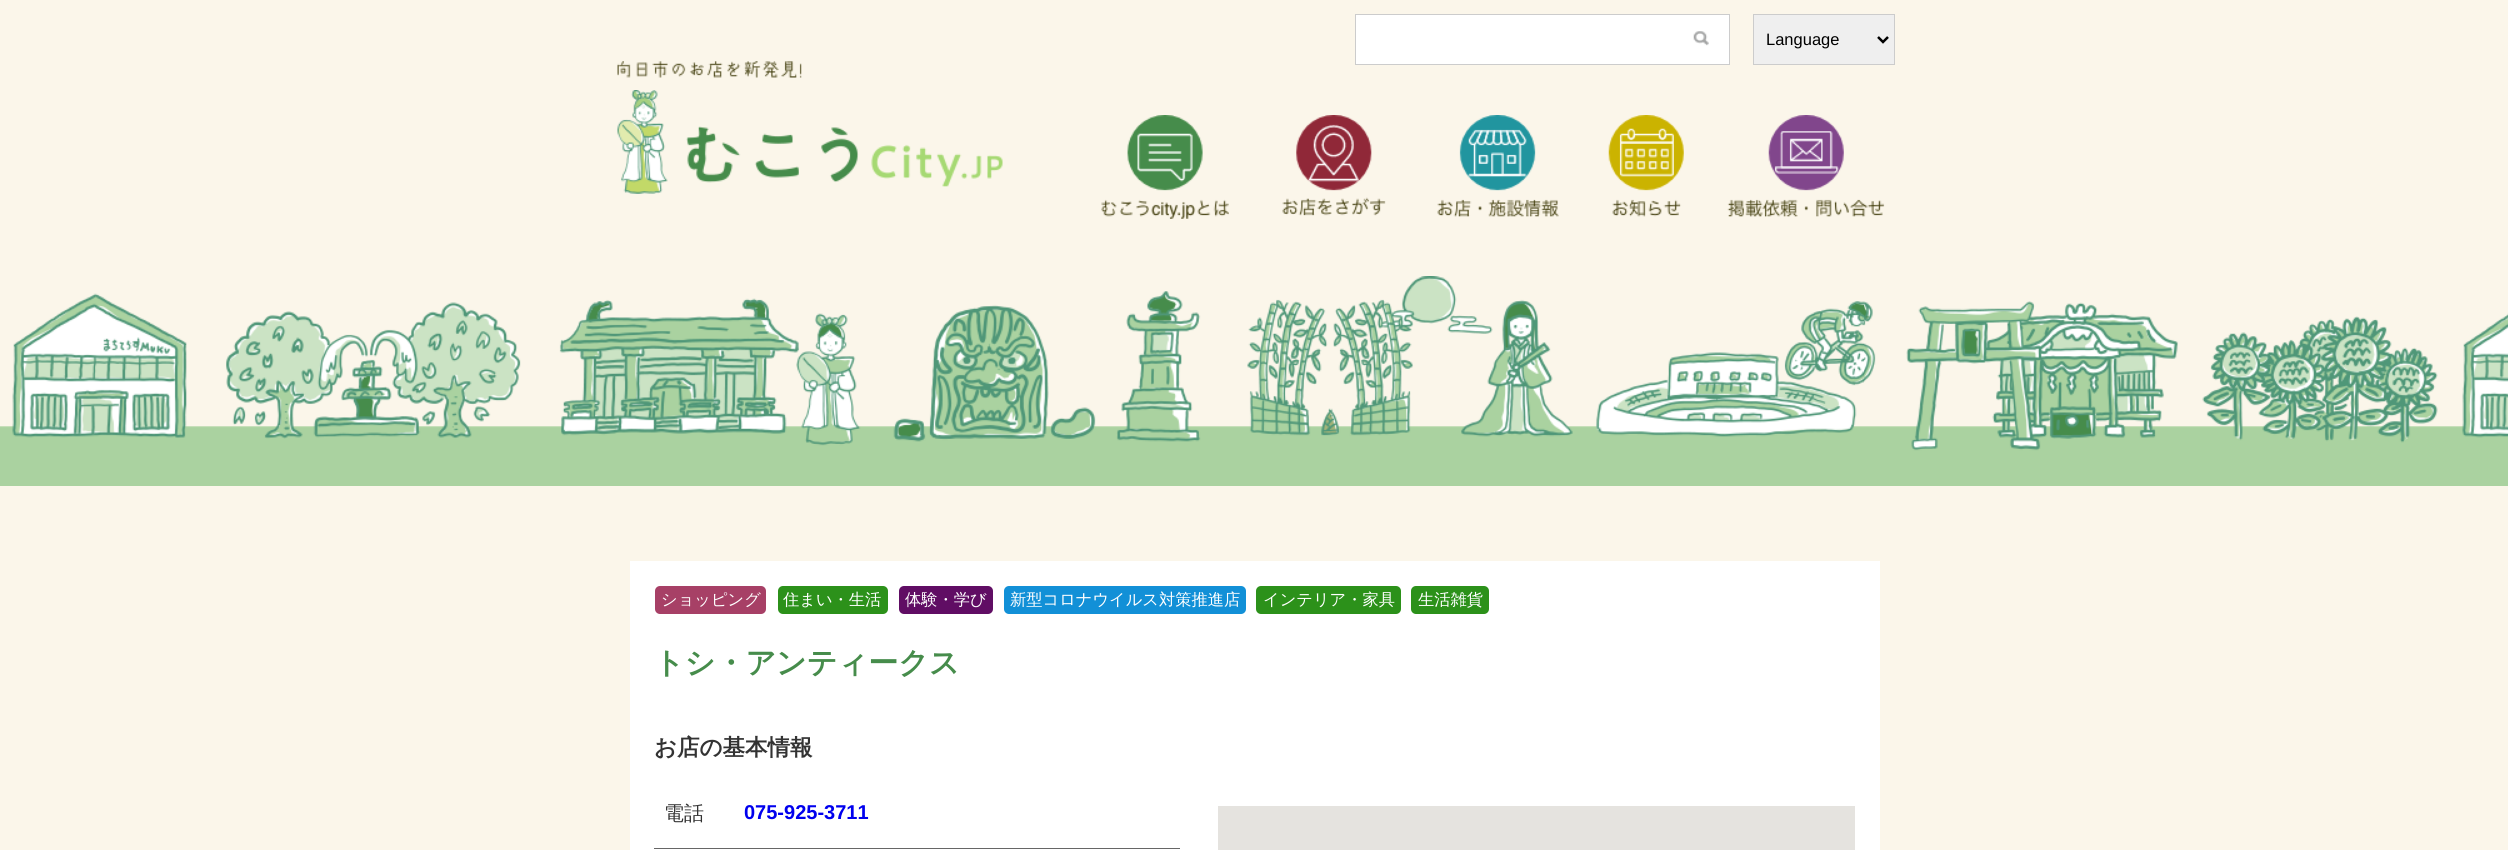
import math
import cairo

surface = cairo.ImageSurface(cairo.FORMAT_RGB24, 2508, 850)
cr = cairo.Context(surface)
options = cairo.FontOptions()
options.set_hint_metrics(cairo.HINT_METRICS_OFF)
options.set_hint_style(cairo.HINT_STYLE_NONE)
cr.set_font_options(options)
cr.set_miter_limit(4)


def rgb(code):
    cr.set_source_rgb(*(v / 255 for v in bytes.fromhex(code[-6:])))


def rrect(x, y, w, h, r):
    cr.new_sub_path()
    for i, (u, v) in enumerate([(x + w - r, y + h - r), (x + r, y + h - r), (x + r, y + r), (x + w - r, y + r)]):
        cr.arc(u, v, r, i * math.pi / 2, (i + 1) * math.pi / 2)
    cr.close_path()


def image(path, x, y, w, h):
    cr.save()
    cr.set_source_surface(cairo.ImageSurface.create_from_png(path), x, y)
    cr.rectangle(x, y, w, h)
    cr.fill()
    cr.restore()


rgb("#fbf6ea")
cr.paint()
rgb("#ffffff")
cr.rectangle(1355.5, 14.5, 374, 50)
cr.fill_preserve()
rgb("#cccccc")
cr.set_line_width(1)
cr.stroke()
image("img/1.png", 1693, 31, 16, 15)
cr.rectangle(1753.5, 14.5, 141, 50)
cr.stroke()
rgb("#efefef")
cr.rectangle(1754, 15, 140, 49)
cr.fill()
cr.new_path()
cr.move_to(1878, 37)
cr.line_to(1883, 42)
cr.line_to(1888, 37)
rgb("#000000")
cr.set_line_width(2.5)
cr.stroke()
image("img/2.png", 1101, 115, 128, 104)
image("img/3.png", 1282, 115, 104, 101)
image("img/4.png", 1437, 115, 122, 102)
image("img/5.png", 1608, 115, 76, 102)
image("img/6.png", 1727, 115, 158, 102)
image("img/7.png", 617, 61, 185, 17)
image("img/8.png", 617, 90, 386, 104)
image("img/9.png", 0, 291, 1225, 195)
image("img/10.png", 1225, 276, 1225, 210)
image("img/11.png", 2450, 313, 58, 173)
rgb("#ffffff")
cr.rectangle(630, 561, 1250, 289)
cr.fill()
rgb("#a74066")
rrect(655, 586, 111, 28, 5)
cr.fill()
rgb("#2c911a")
rrect(778, 586, 110, 28, 5)
cr.fill()
rgb("#600d64")
rrect(899, 586, 94, 28, 5)
cr.fill()
rgb("#1290d7")
rrect(1004, 586, 242, 28, 5)
cr.fill()
rgb("#2c911a")
rrect(1256, 586, 145, 28, 5)
cr.fill()
rrect(1411, 586, 78, 28, 5)
cr.fill()
rgb("#666666")
cr.rectangle(654, 848, 526, 1)
cr.fill()
rgb("#e5e3df")
cr.rectangle(1218, 806, 637, 44)
cr.fill()
cr.select_font_face("Liberation Sans")
cr.set_font_size(16.5)
rgb("#000000")
cr.move_to(1766, 45)
cr.show_text("Language")
cr.select_font_face("WenQuanYi Zen Hei Medium")
cr.set_font_size(16.25)
rgb("#ffffff")
for x, y, s in [
    (661, 605, "ショッピング"),
    (783, 605, "住まい・生活"),
    (905, 605, "体験・学び"),
    (1010, 605, "新型コロナウイルス対策推進店"),
    (1263, 605, "インテリア・家具"),
    (1418, 605, "生活雑貨"),
]:
    cr.move_to(x, y)
    cr.show_text(s)
cr.select_font_face("WenQuanYi Zen Hei", cairo.FONT_SLANT_NORMAL, cairo.FONT_WEIGHT_BOLD)
cr.set_font_size(30)
rgb("#468c4b")
cr.move_to(654, 673)
cr.show_text("トシ・アンティークス")
cr.set_font_size(22.5)
rgb("#333333")
cr.move_to(654, 755)
cr.show_text("お店の基本情報")
cr.select_font_face("WenQuanYi Zen Hei Medium")
cr.set_font_size(20)
cr.move_to(664, 820)
cr.show_text("電話")
cr.select_font_face("Liberation Sans", cairo.FONT_SLANT_NORMAL, cairo.FONT_WEIGHT_BOLD)
rgb("#0000ee")
cr.move_to(744, 819)
cr.show_text("075-925-3711")
surface.write_to_png("page.png")
